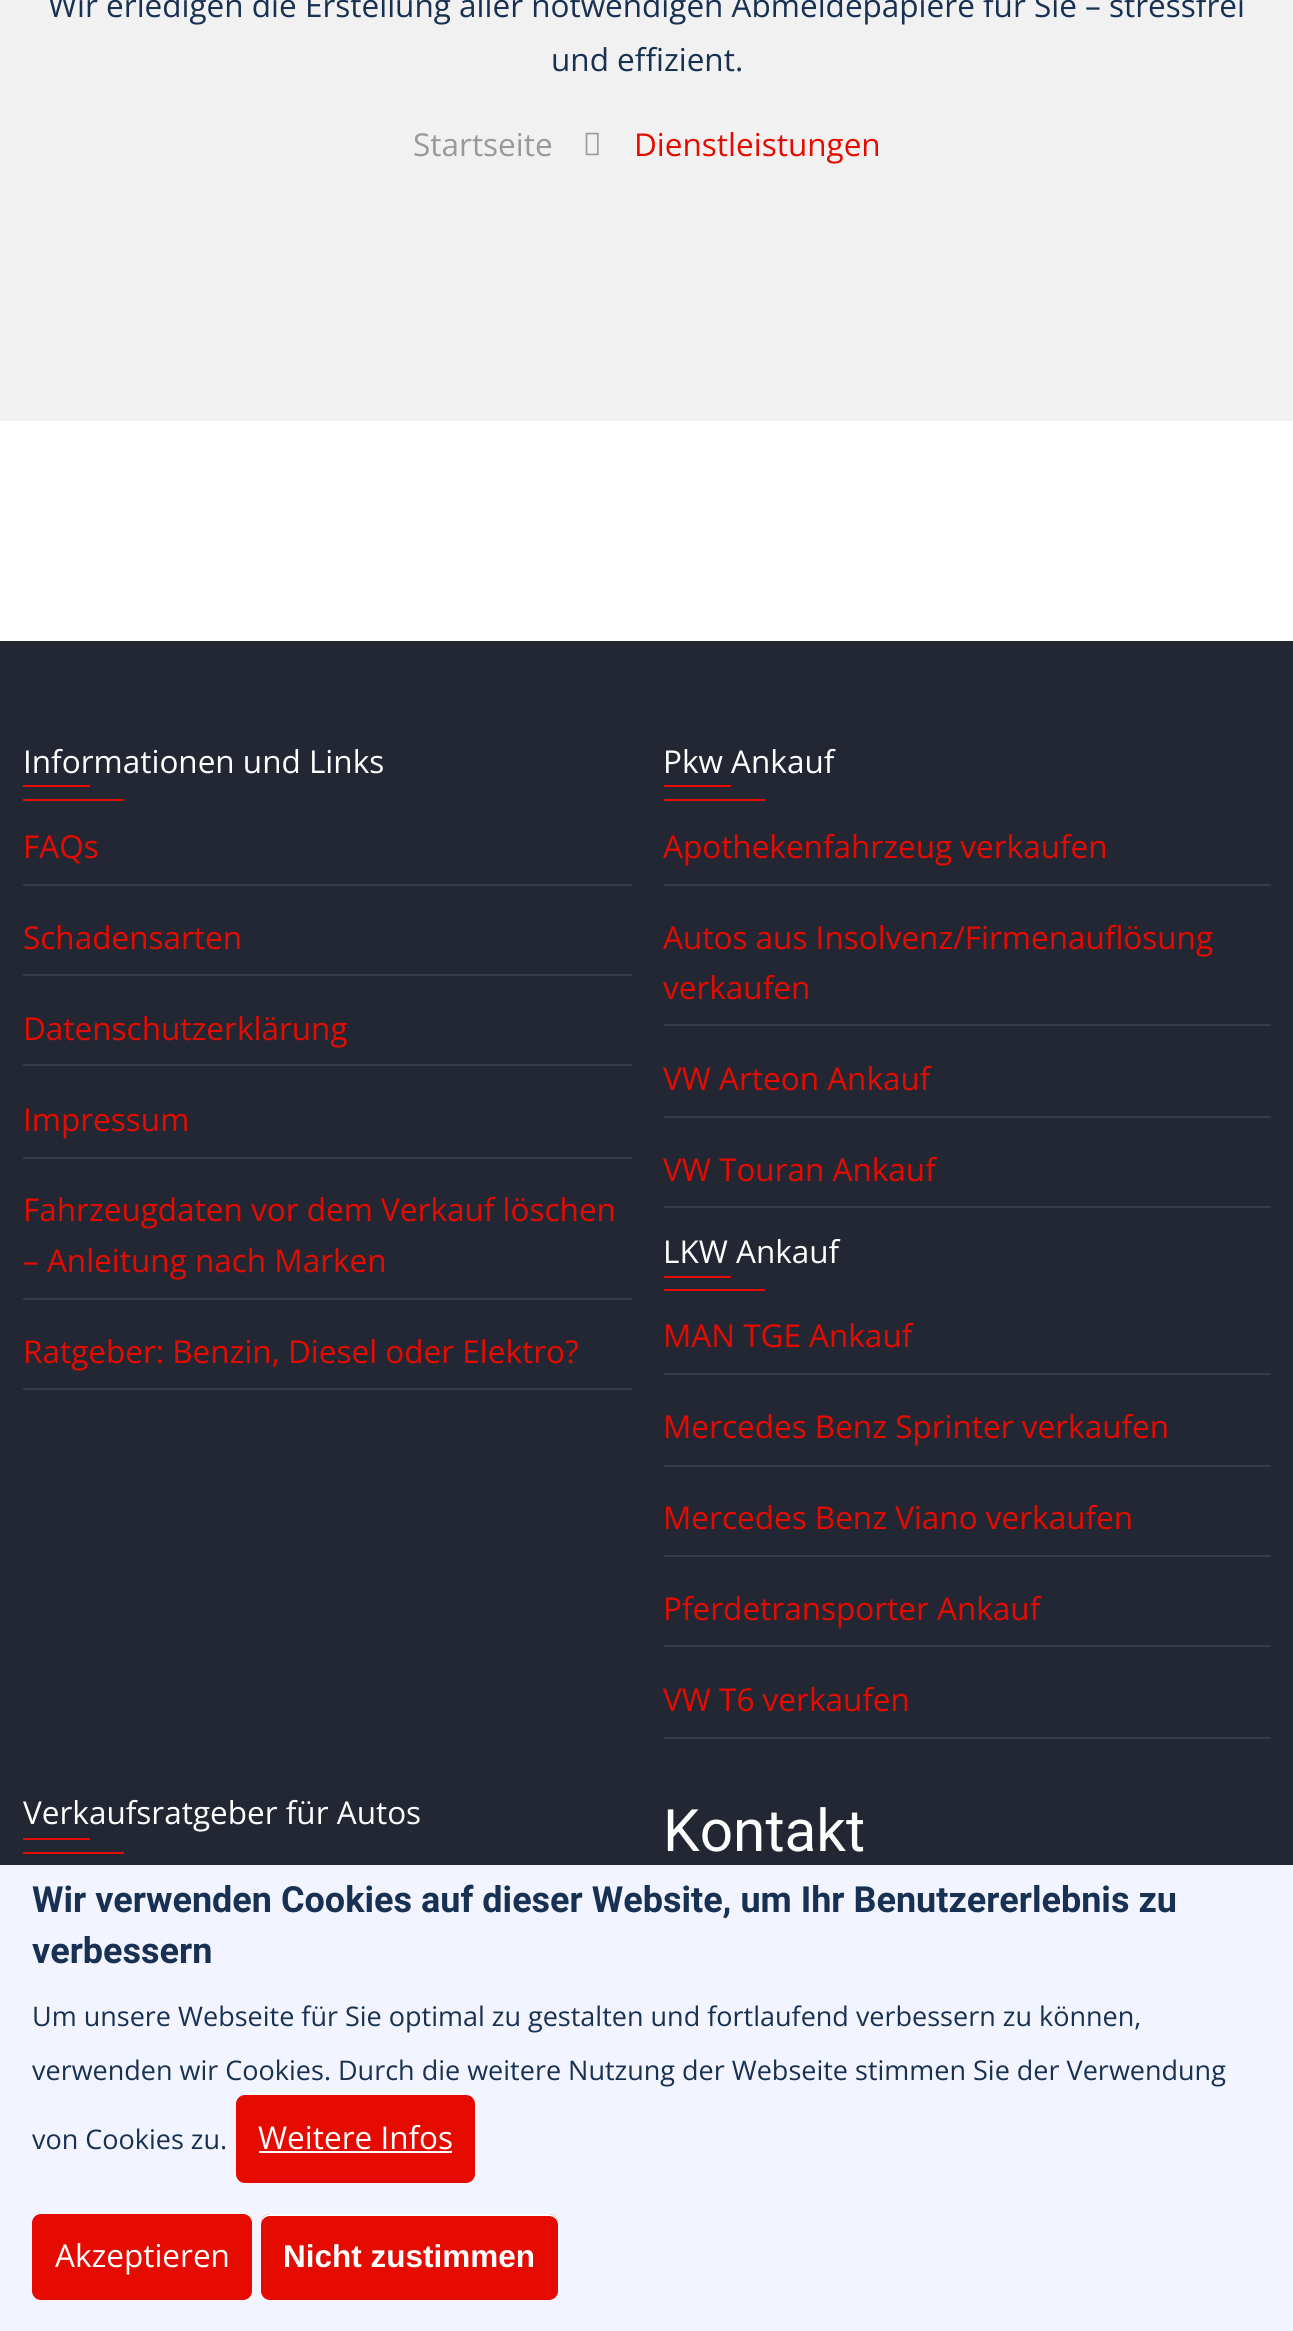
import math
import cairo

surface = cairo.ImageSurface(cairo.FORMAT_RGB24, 1293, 2331)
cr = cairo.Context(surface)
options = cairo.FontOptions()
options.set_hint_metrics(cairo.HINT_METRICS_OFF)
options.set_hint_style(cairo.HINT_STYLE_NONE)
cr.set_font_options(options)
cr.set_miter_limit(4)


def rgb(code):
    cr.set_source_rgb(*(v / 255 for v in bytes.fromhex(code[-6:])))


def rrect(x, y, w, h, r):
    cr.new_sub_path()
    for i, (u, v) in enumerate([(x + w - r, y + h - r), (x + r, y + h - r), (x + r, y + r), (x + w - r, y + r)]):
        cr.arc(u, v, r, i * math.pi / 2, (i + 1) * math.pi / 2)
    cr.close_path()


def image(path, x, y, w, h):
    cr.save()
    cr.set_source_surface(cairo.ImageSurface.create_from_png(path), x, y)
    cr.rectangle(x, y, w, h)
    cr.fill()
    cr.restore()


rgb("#ffffff")
cr.paint()
rgb("#f1f1f1")
cr.rectangle(0, 0, 1293, 421)
cr.fill()
image("img/1.png", 585, 132, 14, 24)
for x, y, w, h, color in [
    (0, 641, 1293, 1224, "#232733"),
    (23, 785, 67, 2, "#e60b00"),
    (23, 799, 101, 2, "#e60b00"),
    (23, 884, 609, 2, "#373b48"),
    (23, 974, 609, 2, "#373b48"),
    (23, 1064, 609, 2, "#373b48"),
    (23, 1157, 609, 2, "#373b48"),
    (23, 1298, 609, 2, "#373b48"),
    (23, 1388, 609, 2, "#373b48"),
    (664, 785, 67, 2, "#e60b00"),
    (664, 799, 101, 2, "#e60b00"),
    (664, 884, 607, 2, "#373b48"),
    (664, 1024, 607, 2, "#373b48"),
    (664, 1116, 607, 2, "#373b48"),
    (664, 1206, 607, 2, "#373b48"),
    (664, 1276, 67, 2, "#e60b00"),
    (664, 1289, 101, 2, "#e60b00"),
    (664, 1373, 607, 2, "#373b48"),
    (664, 1465, 607, 2, "#373b48"),
    (664, 1555, 607, 2, "#373b48"),
    (664, 1645, 607, 2, "#373b48"),
    (664, 1737, 607, 2, "#373b48"),
    (23, 1838, 67, 2, "#e60b00"),
    (23, 1852, 101, 2, "#e60b00"),
    (0, 1865, 1293, 466, "#f2f4ff"),
]:
    rgb(color)
    cr.rectangle(x, y, w, h)
    cr.fill()
rgb("#e60b00")
rrect(236, 2095, 239, 88, 9)
cr.fill()
rgb("#ffffff")
cr.rectangle(259, 2151, 193, 2)
cr.fill()
rgb("#e60b00")
rrect(32, 2214, 220, 86, 9)
cr.fill()
rrect(261, 2214, 297, 86, 9)
cr.fill()
rgb("#ffffff")
cr.new_path()
cr.move_to(270, 2216)
cr.line_to(549, 2216)
cr.curve_to(554, 2216, 558, 2220, 558, 2225)
cr.line_to(558, 2223)
cr.curve_to(558, 2218, 554, 2214, 549, 2214)
cr.line_to(270, 2214)
cr.curve_to(265, 2214, 261, 2218, 261, 2223)
cr.line_to(261, 2225)
cr.curve_to(261, 2220, 265, 2216, 270, 2216)
cr.close_path()
cr.fill()
cr.select_font_face("Open Sans")
cr.set_font_size(31.5)
rgb("#183153")
cr.move_to(48, 17)
cr.show_text("Wir erledigen die Erstellung aller notwendigen Abmeldepapiere für Sie – stressfrei")
cr.move_to(551, 71)
cr.show_text("und effizient.")
rgb("#999999")
cr.move_to(413, 156)
cr.show_text("Startseite")
rgb("#e60b00")
cr.move_to(634, 156)
cr.show_text("Dienstleistungen")
rgb("#ffffff")
cr.move_to(23, 773)
cr.show_text("Informationen und Links")
rgb("#e60b00")
for x, y, s in [
    (23, 858, "FAQs"),
    (23, 949, "Schadensarten"),
    (23, 1040, "Datenschutzerklärung"),
    (23, 1131, "Impressum"),
    (23, 1221, "Fahrzeugdaten vor dem Verkauf löschen"),
    (23, 1272, "– Anleitung nach Marken"),
    (23, 1363, "Ratgeber: Benzin, Diesel oder Elektro?"),
]:
    cr.move_to(x, y)
    cr.show_text(s)
rgb("#ffffff")
cr.move_to(663, 773)
cr.show_text("Pkw Ankauf")
rgb("#e60b00")
for x, y, s in [
    (663, 858, "Apothekenfahrzeug verkaufen"),
    (663, 949, "Autos aus Insolvenz/Firmenauflösung"),
    (663, 999, "verkaufen"),
    (663, 1090, "VW Arteon Ankauf"),
    (663, 1181, "VW Touran Ankauf"),
]:
    cr.move_to(x, y)
    cr.show_text(s)
rgb("#ffffff")
cr.move_to(663, 1263)
cr.show_text("LKW Ankauf")
rgb("#e60b00")
for x, y, s in [
    (663, 1347, "MAN TGE Ankauf"),
    (663, 1438, "Mercedes Benz Sprinter verkaufen"),
    (663, 1529, "Mercedes Benz Viano verkaufen"),
    (663, 1620, "Pferdetransporter Ankauf"),
    (663, 1711, "VW T6 verkaufen"),
]:
    cr.move_to(x, y)
    cr.show_text(s)
rgb("#ffffff")
cr.move_to(23, 1824)
cr.show_text("Verkaufsratgeber für Autos")
cr.select_font_face("Roboto")
cr.set_font_size(58.5)
cr.move_to(663, 1851)
cr.show_text("Kontakt")
cr.select_font_face("Roboto", cairo.FONT_SLANT_NORMAL, cairo.FONT_WEIGHT_BOLD)
cr.set_font_size(36)
rgb("#183153")
cr.move_to(32, 1912)
cr.show_text("Wir verwenden Cookies auf dieser Website, um Ihr Benutzererlebnis zu")
cr.move_to(32, 1963)
cr.show_text("verbessern")
cr.select_font_face("Open Sans")
cr.set_font_size(27)
for x, y, s in [
    (32, 2026, "Um unsere Webseite für Sie optimal zu gestalten und fortlaufend verbessern zu können,"),
    (32, 2080, "verwenden wir Cookies. Durch die weitere Nutzung der Webseite stimmen Sie der Verwendung"),
    (32, 2149, "von Cookies zu."),
]:
    cr.move_to(x, y)
    cr.show_text(s)
cr.set_font_size(31.5)
rgb("#ffffff")
cr.move_to(258, 2149)
cr.show_text("Weitere Infos")
cr.move_to(55, 2267)
cr.show_text("Akzeptieren")
cr.select_font_face("Liberation Sans", cairo.FONT_SLANT_NORMAL, cairo.FONT_WEIGHT_BOLD)
cr.move_to(283, 2267)
cr.show_text("Nicht zustimmen")
surface.write_to_png("page.png")
